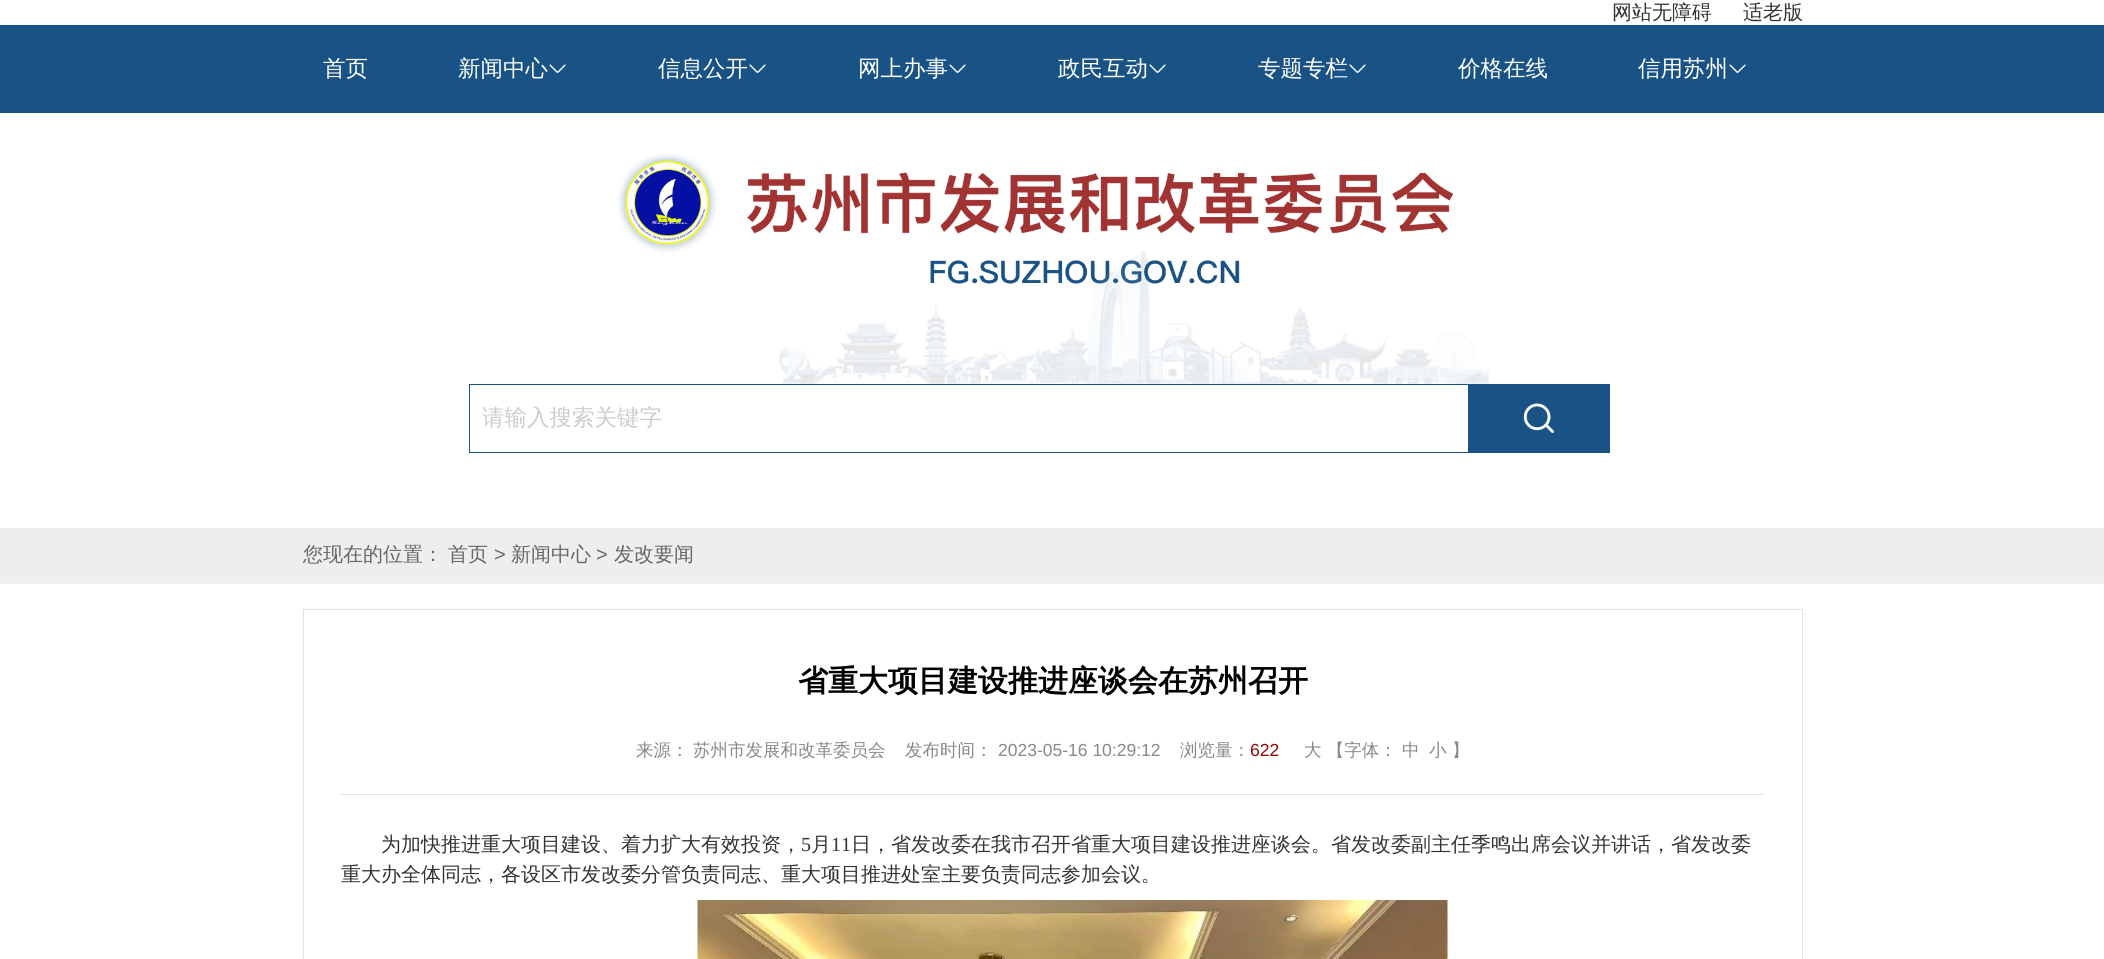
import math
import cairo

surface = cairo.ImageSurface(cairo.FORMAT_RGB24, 2104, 959)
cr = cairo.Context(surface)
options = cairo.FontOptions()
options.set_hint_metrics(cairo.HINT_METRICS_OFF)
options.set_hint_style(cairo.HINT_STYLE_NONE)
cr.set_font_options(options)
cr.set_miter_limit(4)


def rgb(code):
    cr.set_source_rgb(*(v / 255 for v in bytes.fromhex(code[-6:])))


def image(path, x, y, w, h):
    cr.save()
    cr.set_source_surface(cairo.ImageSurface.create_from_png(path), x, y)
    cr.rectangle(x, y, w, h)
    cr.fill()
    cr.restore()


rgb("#ffffff")
cr.paint()
rgb("#195284")
cr.rectangle(0, 25, 2104, 88)
cr.fill()
image("img/1.png", 549, 64, 17, 9)
image("img/1.png", 749, 64, 17, 9)
image("img/1.png", 949, 64, 17, 9)
image("img/1.png", 1149, 64, 17, 9)
image("img/1.png", 1349, 64, 17, 9)
image("img/1.png", 1729, 64, 17, 9)
image("img/2.png", 617, 153, 872, 231)
cr.rectangle(469.5, 384.5, 999, 68)
cr.set_line_width(1)
cr.stroke()
cr.rectangle(1469, 384, 141, 69)
cr.fill()
image("img/3.png", 1523, 403, 31, 30)
rgb("#eeeeee")
cr.rectangle(0, 528, 2104, 55)
cr.fill()
rgb("#f2f2f2")
cr.rectangle(0, 583, 2104, 1)
cr.fill()
cr.rectangle(303.5, 609.5, 1499, 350)
rgb("#e1e1e1")
cr.stroke()
cr.rectangle(341, 794, 1423, 1)
cr.fill()
image("img/4.png", 697, 900, 751, 59)
cr.select_font_face("WenQuanYi Zen Hei Medium")
cr.set_font_size(20)
rgb("#333333")
cr.move_to(1612, 19)
cr.show_text("网站无障碍")
cr.move_to(1743, 19)
cr.show_text("适老版")
cr.set_font_size(22.5)
rgb("#ffffff")
for x, y, s in [
    (323, 76, "首页"),
    (458, 76, "新闻中心"),
    (658, 76, "信息公开"),
    (858, 76, "网上办事"),
    (1058, 76, "政民互动"),
    (1258, 76, "专题专栏"),
    (1458, 76, "价格在线"),
    (1638, 76, "信用苏州"),
]:
    cr.move_to(x, y)
    cr.show_text(s)
cr.save()
cr.rectangle(483, 403, 972, 30)
cr.clip()
rgb("#cccccc")
cr.move_to(482, 425)
cr.show_text("请输入搜索关键字")
cr.restore()
cr.set_font_size(20)
rgb("#666666")
cr.move_to(303, 561)
cr.show_text("您现在的位置：")
cr.move_to(448, 561)
cr.show_text("首页")
cr.select_font_face("Liberation Sans")
cr.move_to(494, 561)
cr.show_text(">")
cr.select_font_face("WenQuanYi Zen Hei Medium")
cr.move_to(511, 561)
cr.show_text("新闻中心")
cr.select_font_face("Liberation Sans")
cr.move_to(596, 561)
cr.show_text(">")
cr.select_font_face("WenQuanYi Zen Hei Medium")
cr.move_to(614, 561)
cr.show_text("发改要闻")
cr.select_font_face("WenQuanYi Zen Hei", cairo.FONT_SLANT_NORMAL, cairo.FONT_WEIGHT_BOLD)
cr.set_font_size(30)
rgb("#000000")
cr.move_to(798, 691)
cr.show_text("省重大项目建设推进座谈会在苏州召开")
cr.select_font_face("WenQuanYi Zen Hei Medium")
cr.set_font_size(17.5)
rgb("#888888")
for x, y, s in [
    (636, 756, "来源："),
    (693, 756, "苏州市发展和改革委员会"),
    (905, 756, "发布时间："),
]:
    cr.move_to(x, y)
    cr.show_text(s)
cr.select_font_face("Liberation Sans")
cr.move_to(998, 756)
cr.show_text("2023-05-16 10:29:12")
cr.select_font_face("WenQuanYi Zen Hei Medium")
cr.move_to(1180, 756)
cr.show_text("浏览量：")
cr.select_font_face("Liberation Sans")
rgb("#8d0707")
cr.move_to(1250, 756)
cr.show_text("622")
cr.select_font_face("WenQuanYi Zen Hei Medium")
rgb("#888888")
cr.move_to(1304, 756)
cr.show_text("大 【字体： 中")
cr.move_to(1429, 756)
cr.show_text("小 】")
cr.set_font_size(20)
rgb("#333333")
cr.move_to(381, 851)
cr.show_text("为加快推进重大项目建设、着力扩大有效投资，")
cr.select_font_face("Liberation Serif")
cr.move_to(801, 851)
cr.show_text("5")
cr.select_font_face("WenQuanYi Zen Hei Medium")
cr.move_to(811, 851)
cr.show_text("月")
cr.select_font_face("Liberation Serif")
cr.move_to(831, 851)
cr.show_text("11")
cr.select_font_face("WenQuanYi Zen Hei Medium")
cr.move_to(851, 851)
cr.show_text("日，省发改委在我市召开省重大项目建设推进座谈会。省发改委副主任季鸣出席会议并讲话，省发改委")
cr.move_to(341, 881)
cr.show_text("重大办全体同志，各设区市发改委分管负责同志、重大项目推进处室主要负责同志参加会议。")
surface.write_to_png("page.png")
